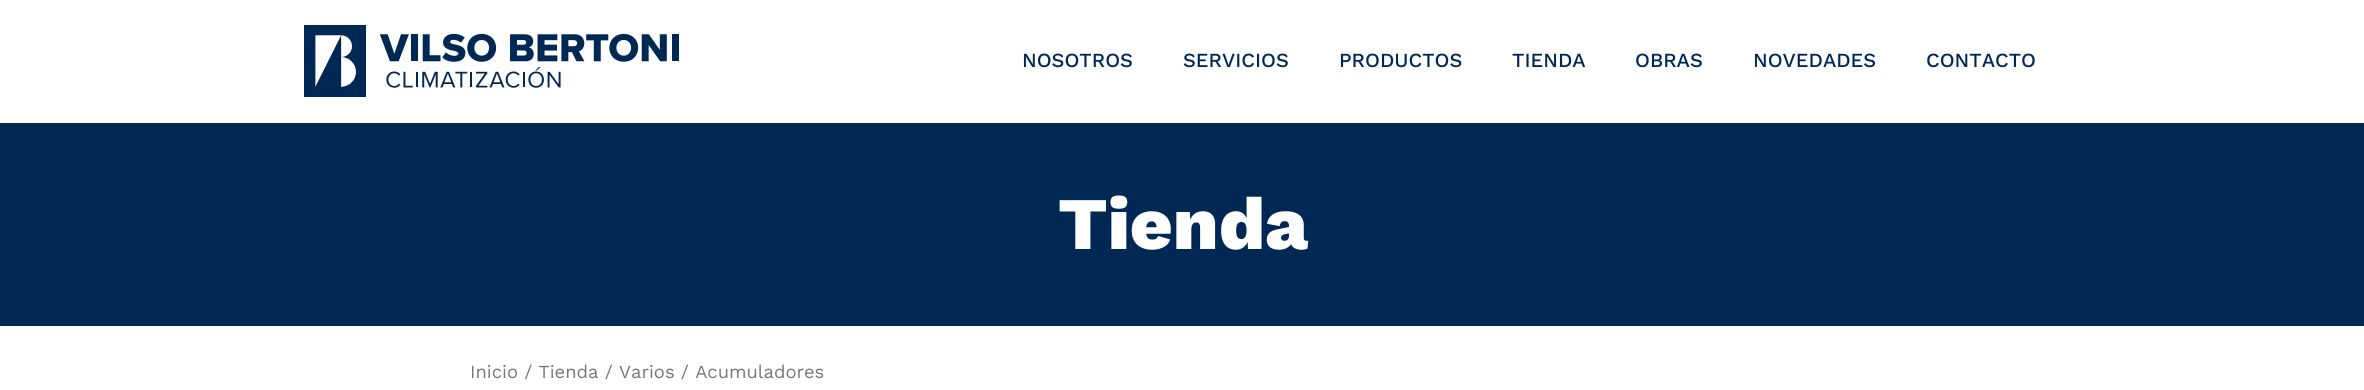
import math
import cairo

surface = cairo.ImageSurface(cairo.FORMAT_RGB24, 2364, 390)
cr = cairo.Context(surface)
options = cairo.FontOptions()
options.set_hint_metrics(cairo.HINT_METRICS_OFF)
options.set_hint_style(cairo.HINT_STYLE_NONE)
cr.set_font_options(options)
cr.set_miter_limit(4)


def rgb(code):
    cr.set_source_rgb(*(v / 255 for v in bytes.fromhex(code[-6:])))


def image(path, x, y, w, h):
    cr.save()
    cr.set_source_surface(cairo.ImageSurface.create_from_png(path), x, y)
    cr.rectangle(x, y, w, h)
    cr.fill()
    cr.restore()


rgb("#ffffff")
cr.paint()
image("img/1.png", 304, 25, 375, 72)
rgb("#002855")
cr.rectangle(0, 123, 2364, 203)
cr.fill()
cr.select_font_face("Work Sans Medium")
cr.set_font_size(20)
for x, y, s in [
    (1022, 67, "NOSOTROS"),
    (1183, 67, "SERVICIOS"),
    (1339, 67, "PRODUCTOS"),
    (1512, 67, "TIENDA"),
    (1635, 67, "OBRAS"),
    (1753, 67, "NOVEDADES"),
    (1926, 67, "CONTACTO"),
]:
    cr.move_to(x, y)
    cr.show_text(s)
cr.select_font_face("Work Sans ExtraBold")
cr.set_font_size(74)
rgb("#ffffff")
cr.move_to(1058, 249)
cr.show_text("Tienda")
cr.select_font_face("Work Sans")
cr.set_font_size(18.4)
rgb("#777777")
cr.move_to(470, 378)
cr.show_text("Inicio / Tienda / Varios / Acumuladores")
surface.write_to_png("page.png")
